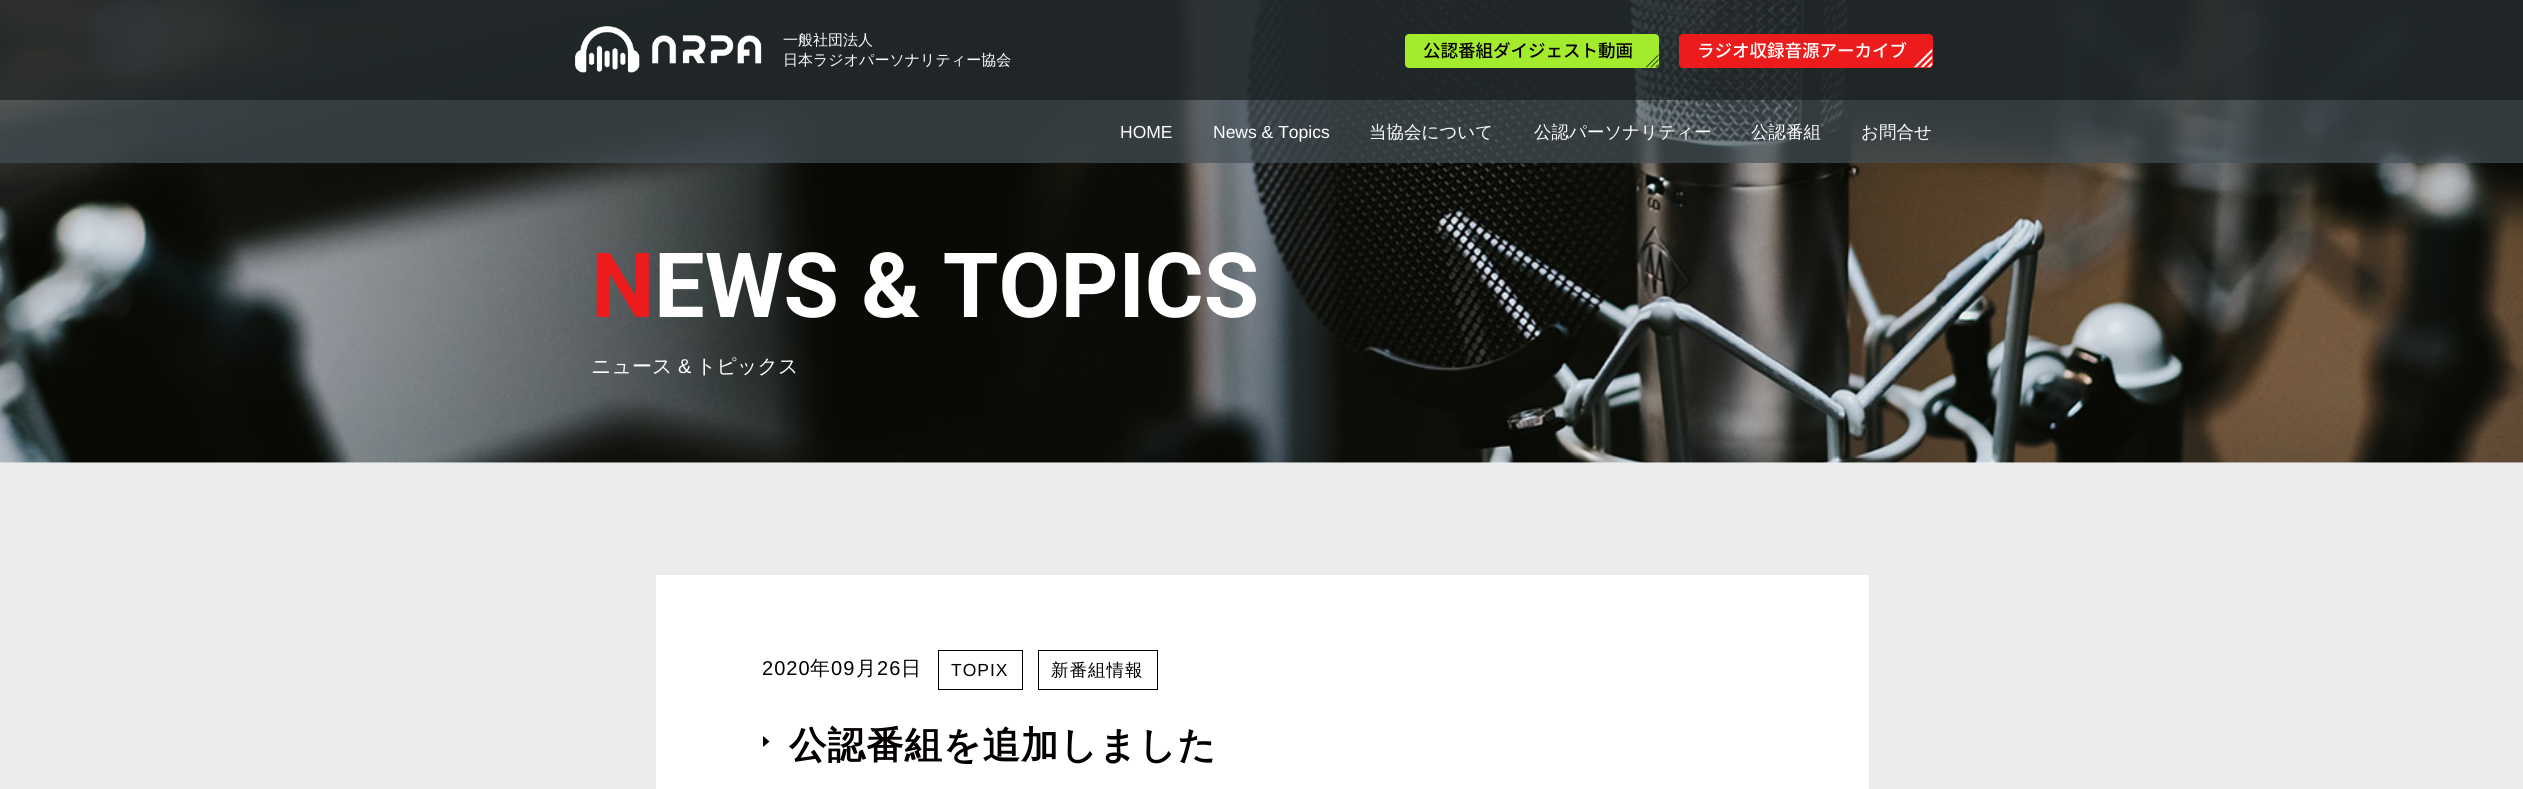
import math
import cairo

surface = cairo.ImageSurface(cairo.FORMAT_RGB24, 2523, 789)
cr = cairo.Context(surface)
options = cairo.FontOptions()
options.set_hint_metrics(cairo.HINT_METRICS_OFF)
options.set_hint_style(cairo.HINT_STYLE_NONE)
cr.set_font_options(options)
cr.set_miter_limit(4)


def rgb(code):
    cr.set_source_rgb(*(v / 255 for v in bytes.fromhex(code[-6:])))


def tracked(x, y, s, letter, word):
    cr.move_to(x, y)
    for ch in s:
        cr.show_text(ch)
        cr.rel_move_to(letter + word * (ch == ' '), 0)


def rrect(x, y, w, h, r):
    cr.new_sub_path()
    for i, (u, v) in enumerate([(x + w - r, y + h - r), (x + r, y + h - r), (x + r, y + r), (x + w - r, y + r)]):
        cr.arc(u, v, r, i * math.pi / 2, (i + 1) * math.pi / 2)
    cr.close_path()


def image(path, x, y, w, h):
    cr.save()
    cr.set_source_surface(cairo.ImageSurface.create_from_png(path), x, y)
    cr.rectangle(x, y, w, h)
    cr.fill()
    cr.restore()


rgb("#ffffff")
cr.paint()
image("img/1.png", 0, 0, 2523, 463)
cr.set_source_rgba(0.137, 0.161, 0.173, 0.9)
cr.rectangle(0, 0, 2523, 100)
cr.fill()
image("img/2.png", 575, 26, 187, 47)
rgb("#a2eb2d")
rrect(1405, 34, 254, 34, 4)
cr.fill()
image("img/3.png", 1645, 54, 14, 14)
rgb("#ed1c1c")
rrect(1679, 34, 254, 34, 4)
cr.fill()
image("img/4.png", 1913, 48, 20, 20)
cr.set_source_rgba(0.271, 0.318, 0.345, 0.7)
cr.rectangle(0, 100, 2523, 63)
cr.fill()
rgb("#ececec")
cr.rectangle(0, 463, 2523, 326)
cr.fill()
rgb("#ffffff")
cr.rectangle(656, 575, 1213, 214)
cr.fill()
cr.rectangle(938.5, 650.5, 84, 39)
rgb("#000000")
cr.set_line_width(1)
cr.stroke()
cr.rectangle(1038.5, 650.5, 119, 39)
cr.stroke()
cr.new_path()
cr.move_to(763, 747)
cr.line_to(763, 736)
cr.line_to(769.5, 741.5)
cr.close_path()
cr.fill()
cr.select_font_face("WenQuanYi Zen Hei Medium")
cr.set_font_size(15)
rgb("#ffffff")
cr.move_to(783, 45)
cr.show_text("一般社団法人")
cr.move_to(783, 65)
cr.show_text("日本ラジオパーソナリティー協会")
cr.select_font_face("Noto Sans JP Medium")
cr.set_font_size(17.5)
rgb("#040000")
cr.move_to(1423, 57)
cr.show_text("公認番組ダイジェスト動画")
rgb("#ffffff")
cr.move_to(1697, 57)
cr.show_text("ラジオ収録音源アーカイブ")
cr.select_font_face("Liberation Sans")
cr.move_to(1120, 138)
cr.show_text("HOME")
cr.move_to(1213, 138)
cr.show_text("News & Topics")
cr.select_font_face("WenQuanYi Zen Hei Medium")
for x, y, s in [
    (1369, 138, "当協会について"),
    (1534, 138, "公認パーソナリティー"),
    (1751, 138, "公認番組"),
    (1861, 138, "お問合せ"),
]:
    cr.move_to(x, y)
    cr.show_text(s)
cr.select_font_face("Roboto", cairo.FONT_SLANT_NORMAL, cairo.FONT_WEIGHT_BOLD)
cr.set_font_size(90)
rgb("#ed1c1c")
cr.move_to(591, 317)
cr.show_text("N")
rgb("#ffffff")
cr.move_to(654, 317)
cr.show_text("EWS & TOPICS")
cr.select_font_face("WenQuanYi Zen Hei Medium")
cr.set_font_size(20)
cr.move_to(591, 373)
cr.show_text("ニュース")
cr.select_font_face("Liberation Sans")
cr.move_to(678, 373)
cr.show_text("&")
cr.select_font_face("WenQuanYi Zen Hei Medium")
cr.move_to(696, 373)
cr.show_text("トピックス")
cr.select_font_face("Liberation Sans")
rgb("#040000")
tracked(762, 675, "2020", 1, 0)
cr.select_font_face("WenQuanYi Zen Hei Medium")
tracked(810, 675, "年", 1, 0)
cr.select_font_face("Liberation Sans")
tracked(831, 675, "09", 1, 0)
cr.select_font_face("WenQuanYi Zen Hei Medium")
tracked(856, 675, "月", 1, 0)
cr.select_font_face("Liberation Sans")
tracked(877, 675, "26", 1, 0)
cr.select_font_face("WenQuanYi Zen Hei Medium")
tracked(901, 675, "日", 1, 0)
cr.select_font_face("Liberation Sans")
cr.set_font_size(17.5)
tracked(951, 676, "TOPIX", 1, 0)
cr.select_font_face("WenQuanYi Zen Hei Medium")
tracked(1051, 676, "新番組情報", 1, 0)
cr.select_font_face("WenQuanYi Zen Hei", cairo.FONT_SLANT_NORMAL, cairo.FONT_WEIGHT_BOLD)
cr.set_font_size(37.5)
tracked(789, 758, "公認番組を追加しました", 1, 0)
surface.write_to_png("page.png")
